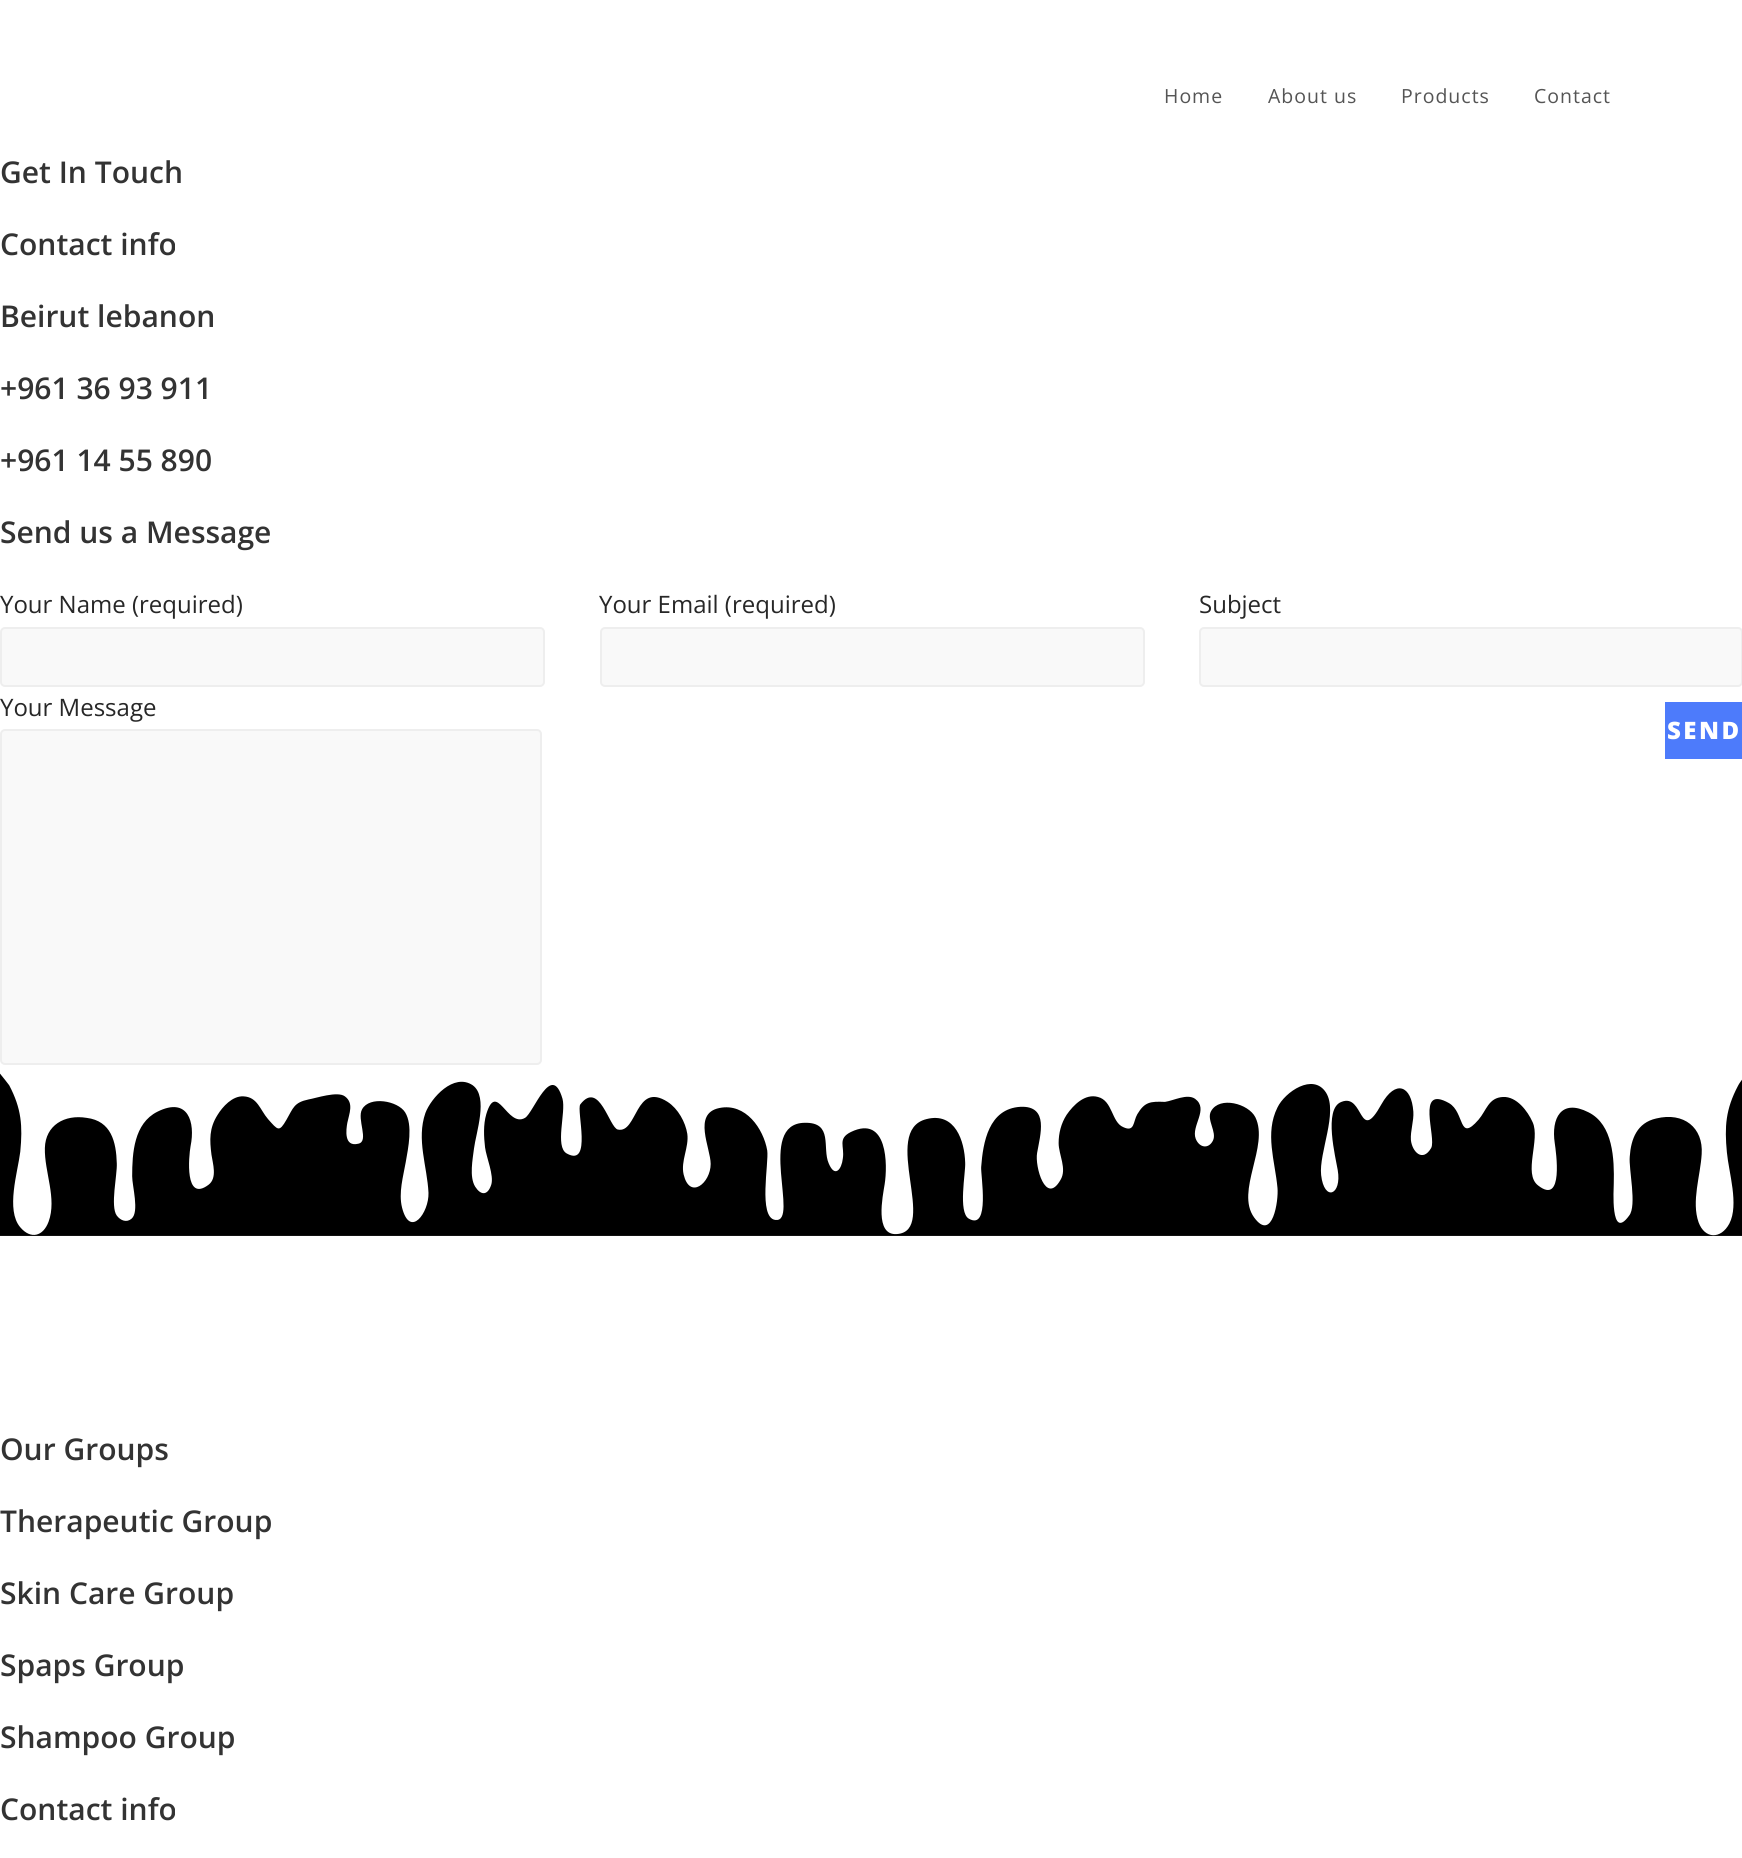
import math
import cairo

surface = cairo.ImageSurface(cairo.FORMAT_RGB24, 1742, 1858)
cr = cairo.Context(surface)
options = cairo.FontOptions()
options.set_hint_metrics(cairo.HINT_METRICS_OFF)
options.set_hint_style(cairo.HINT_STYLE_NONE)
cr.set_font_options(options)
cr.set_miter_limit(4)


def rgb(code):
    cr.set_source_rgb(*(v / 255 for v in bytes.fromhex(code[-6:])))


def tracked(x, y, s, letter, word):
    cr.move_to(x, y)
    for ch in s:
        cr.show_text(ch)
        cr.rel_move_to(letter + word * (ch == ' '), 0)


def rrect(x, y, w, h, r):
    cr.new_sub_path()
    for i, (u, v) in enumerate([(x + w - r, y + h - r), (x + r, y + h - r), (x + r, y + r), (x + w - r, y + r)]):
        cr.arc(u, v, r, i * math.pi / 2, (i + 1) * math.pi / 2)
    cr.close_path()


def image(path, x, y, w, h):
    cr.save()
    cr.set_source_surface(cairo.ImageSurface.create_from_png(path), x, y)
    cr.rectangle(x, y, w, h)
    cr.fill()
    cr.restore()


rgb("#ffffff")
cr.paint()
rgb("#f9f9f9")
rrect(1, 628, 543, 58, 4)
cr.fill_preserve()
rgb("#eeeeee")
cr.stroke()
rgb("#f9f9f9")
rrect(601, 628, 543, 58, 4)
cr.fill_preserve()
rgb("#eeeeee")
cr.stroke()
rgb("#f9f9f9")
rrect(1200, 628, 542, 58, 4)
cr.fill_preserve()
rgb("#eeeeee")
cr.stroke()
rgb("#f9f9f9")
rrect(1, 730, 540, 334, 4)
cr.fill_preserve()
rgb("#eeeeee")
cr.stroke()
rgb("#4d7bfb")
cr.rectangle(1665, 702, 77, 57)
cr.fill()
image("img/1.png", 0, 1073, 1742, 163)
cr.select_font_face("Open Sans")
cr.set_font_size(19.5)
rgb("#555555")
for x, y, s in [
    (1164, 103, "Home"),
    (1268, 103, "About us"),
    (1401, 103, "Products"),
    (1534, 103, "Contact"),
]:
    tracked(x, y, s, 1, 0)
cr.select_font_face("Open Sans SemiBold")
cr.set_font_size(30)
rgb("#333333")
for x, y, s in [
    (0, 183, "Get In Touch"),
    (0, 255, "Contact info"),
    (0, 327, "Beirut lebanon"),
    (0, 399, "+961 36 93 911"),
    (0, 471, "+961 14 55 890"),
    (0, 543, "Send us a Message"),
]:
    cr.move_to(x, y)
    cr.show_text(s)
cr.select_font_face("Open Sans")
cr.set_font_size(24)
rgb("#272727")
for x, y, s in [
    (0, 613, "Your Name (required)"),
    (599, 613, "Your Email (required)"),
    (1199, 613, "Subject"),
    (0, 716, "Your Message"),
]:
    cr.move_to(x, y)
    cr.show_text(s)
cr.select_font_face("Open Sans ExtraBold")
rgb("#ffffff")
tracked(1667, 739, "SEND", 2.5, 0)
cr.select_font_face("Open Sans SemiBold")
cr.set_font_size(30)
rgb("#333333")
for x, y, s in [
    (0, 1460, "Our Groups"),
    (0, 1532, "Therapeutic Group"),
    (0, 1604, "Skin Care Group"),
    (0, 1676, "Spaps Group"),
    (0, 1748, "Shampoo Group"),
    (0, 1820, "Contact info"),
]:
    cr.move_to(x, y)
    cr.show_text(s)
surface.write_to_png("page.png")
